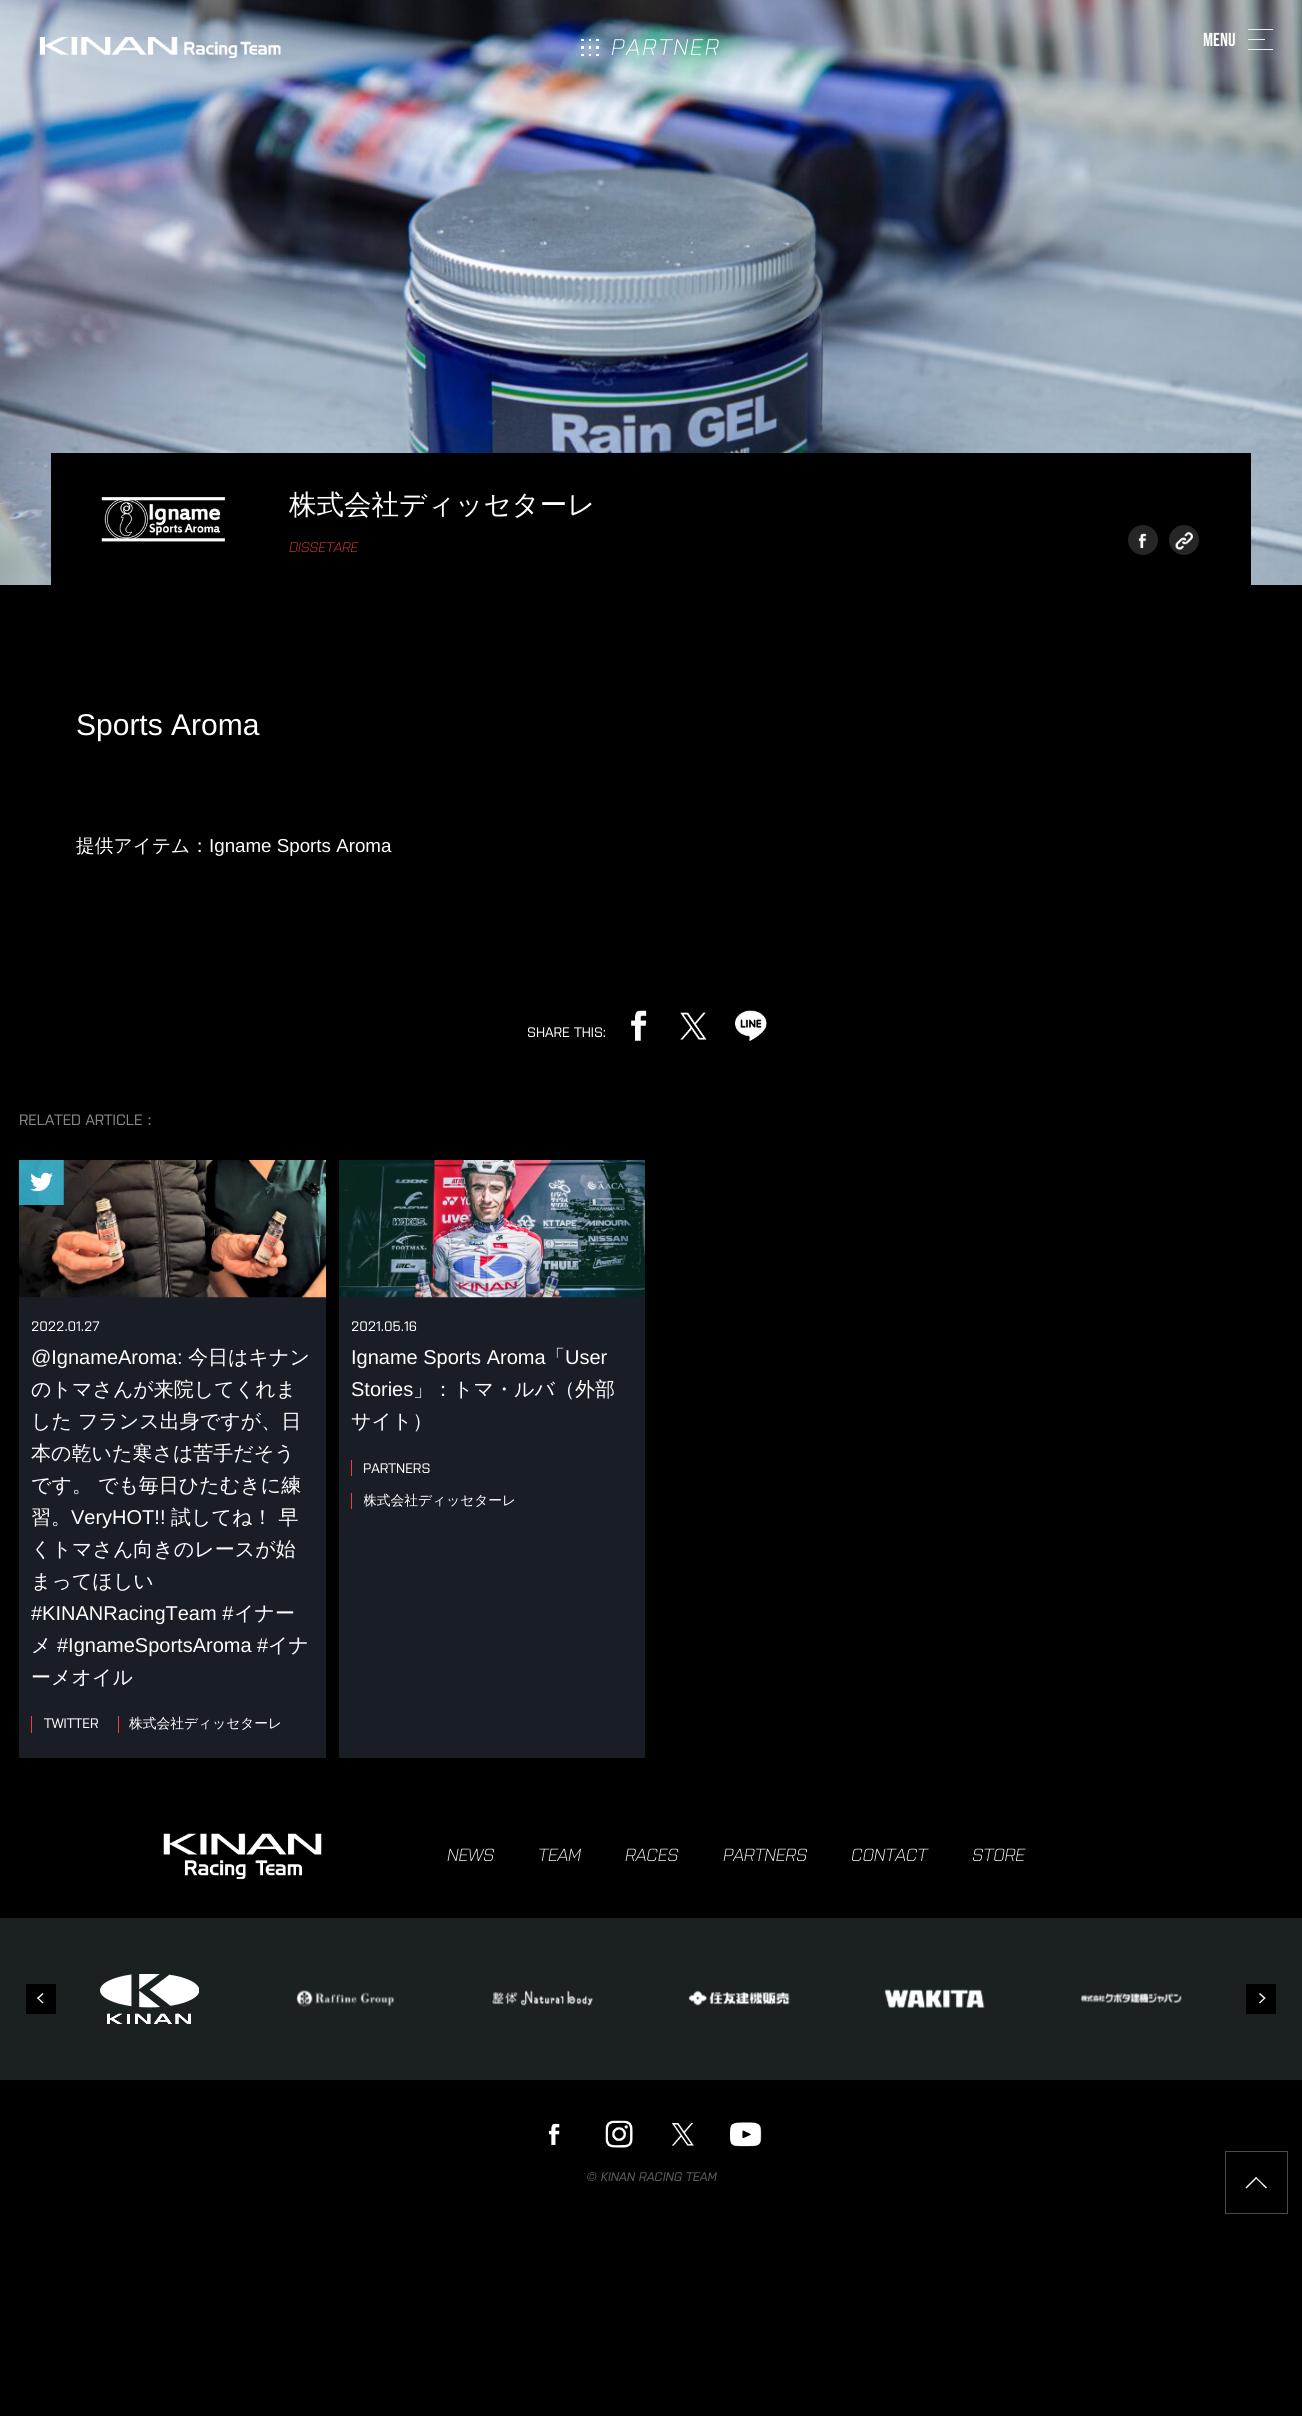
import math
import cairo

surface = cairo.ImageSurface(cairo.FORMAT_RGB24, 1302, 2416)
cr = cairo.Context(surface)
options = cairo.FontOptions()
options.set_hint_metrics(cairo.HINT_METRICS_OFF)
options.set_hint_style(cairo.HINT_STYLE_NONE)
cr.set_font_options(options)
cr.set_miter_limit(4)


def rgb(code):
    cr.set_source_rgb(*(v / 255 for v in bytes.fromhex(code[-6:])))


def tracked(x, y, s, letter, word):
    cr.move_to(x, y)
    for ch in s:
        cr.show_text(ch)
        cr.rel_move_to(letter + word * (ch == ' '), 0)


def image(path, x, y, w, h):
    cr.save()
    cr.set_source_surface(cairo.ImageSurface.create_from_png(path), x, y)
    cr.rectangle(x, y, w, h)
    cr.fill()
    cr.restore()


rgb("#000000")
cr.paint()
image("img/2.png", 0, 0, 1302, 585)
image("img/1.png", 581, 39, 18, 17)
rgb("#000000")
cr.rectangle(51, 453, 1200, 132)
cr.fill()
image("img/3.png", 101, 497, 124, 45)
rgb("#262626")
cr.arc(1143, 540, 15, 0, 2 * math.pi)
cr.fill()
image("img/4.png", 1138, 533, 9, 15)
cr.arc(1184, 540, 15, 0, 2 * math.pi)
cr.fill()
image("img/5.png", 1175, 532, 19, 18)
image("img/6.png", 631, 1010, 16, 31)
image("img/7.png", 680, 1012, 27, 28)
image("img/8.png", 735, 1010, 32, 31)
rgb("#191d25")
cr.rectangle(19, 1297, 307, 461)
cr.fill()
image("img/10.png", 19, 1160, 308, 138)
image("img/9.png", 18, 1160, 46, 45)
for x, y, w, h, color in [
    (31, 1716, 1, 17, "#f53f3f"),
    (118, 1716, 1, 17, "#f53f3f"),
    (339, 1297, 306, 461, "#191d25"),
]:
    rgb(color)
    cr.rectangle(x, y, w, h)
    cr.fill()
image("img/11.png", 339, 1160, 306, 138)
rgb("#f53f3f")
cr.rectangle(351, 1460, 1, 16)
cr.fill()
cr.rectangle(351, 1493, 1, 16)
cr.fill()
image("img/12.png", 39, 37, 242, 21)
for x, y, w, h, color in [
    (1248, 29, 25, 1, "#eeeeee"),
    (1248, 39, 17, 1, "#eeeeee"),
    (1248, 49, 25, 1, "#eeeeee"),
]:
    rgb(color)
    cr.rectangle(x, y, w, h)
    cr.fill()
image("img/13.png", 163, 1833, 159, 47)
rgb("#1b2121")
cr.rectangle(0, 1918, 1302, 162)
cr.fill()
rgb("#000000")
cr.rectangle(26, 1984, 30, 30)
cr.fill()
rgb("#ffffff")
cr.new_path()
cr.move_to(42.5, 2003.5)
cr.line_to(37, 1998)
cr.line_to(38, 1997.5)
cr.line_to(43.5, 2002.5)
cr.close_path()
cr.fill()
cr.new_path()
cr.move_to(38, 1999)
cr.line_to(37, 1998)
cr.line_to(42.5, 1993)
cr.line_to(43.5, 1994)
cr.close_path()
cr.fill()
image("img/14.png", 100, 1974, 99, 50)
image("img/15.png", 296, 1990, 99, 17)
image("img/16.png", 492, 1990, 102, 16)
image("img/17.png", 688, 1990, 102, 16)
image("img/18.png", 884, 1989, 101, 19)
image("img/19.png", 1081, 1993, 101, 10)
rgb("#000000")
cr.rectangle(1246, 1984, 30, 30)
cr.fill()
rgb("#ffffff")
cr.new_path()
cr.move_to(1260, 1993)
cr.line_to(1265.5, 1998)
cr.line_to(1264.5, 1999)
cr.line_to(1259, 1994)
cr.close_path()
cr.fill()
cr.new_path()
cr.move_to(1264.5, 1997.5)
cr.line_to(1265.5, 1998)
cr.line_to(1260, 2003.5)
cr.line_to(1259, 2002.5)
cr.close_path()
cr.fill()
image("img/20.png", 548, 2123, 12, 22)
image("img/21.png", 605, 2120, 28, 28)
image("img/22.png", 672, 2123, 22, 23)
image("img/23.png", 730, 2122, 32, 25)
cr.rectangle(1225.5, 2151.5, 62, 62)
rgb("#444c55")
cr.set_line_width(1)
cr.stroke()
rgb("#ffffff")
cr.new_path()
cr.move_to(1245.5, 2187.5)
cr.line_to(1256, 2177)
cr.line_to(1257, 2178)
cr.line_to(1246.5, 2188.5)
cr.close_path()
cr.fill()
cr.new_path()
cr.move_to(1255.5, 2178)
cr.line_to(1256, 2177)
cr.line_to(1267, 2187.5)
cr.line_to(1266, 2188.5)
cr.close_path()
cr.fill()
cr.select_font_face("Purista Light", cairo.FONT_SLANT_ITALIC)
cr.set_font_size(22.5)
tracked(611, 55, "PARTNER", 2.25, 0)
cr.select_font_face("WenQuanYi Zen Hei Medium")
cr.set_font_size(27.5)
cr.move_to(289, 514)
cr.show_text("株式会社ディッセターレ")
cr.select_font_face("Purista Light", cairo.FONT_SLANT_ITALIC)
cr.set_font_size(13.75)
rgb("#f53f3f")
cr.move_to(289, 552)
cr.show_text("DISSETARE")
cr.select_font_face("Liberation Sans")
cr.set_font_size(30)
rgb("#ffffff")
cr.move_to(76, 735)
cr.show_text("Sports Aroma")
cr.select_font_face("WenQuanYi Zen Hei Medium")
cr.set_font_size(18.75)
cr.move_to(76, 852)
cr.show_text("提供アイテム：")
cr.select_font_face("Liberation Sans")
cr.move_to(209, 852)
cr.show_text("Igname Sports Aroma")
cr.select_font_face("Purista")
cr.set_font_size(13.75)
cr.move_to(527, 1037)
cr.show_text("SHARE THIS:")
cr.set_font_size(15)
rgb("#888888")
cr.move_to(19, 1125)
cr.show_text("RELATED ARTICLE")
cr.select_font_face("WenQuanYi Zen Hei Medium")
cr.move_to(142, 1125)
cr.show_text("：")
cr.select_font_face("Purista")
cr.set_font_size(13.75)
rgb("#ffffff")
cr.move_to(31, 1331)
cr.show_text("2022.01.27")
cr.select_font_face("Liberation Sans")
cr.set_font_size(20)
cr.move_to(31, 1364)
cr.show_text("@IgnameAroma:")
cr.select_font_face("WenQuanYi Zen Hei Medium")
for x, y, s in [
    (188, 1364, "今日はキナン"),
    (31, 1396, "のトマさんが来院してくれま"),
    (31, 1428, "した フランス出身ですが、日"),
    (31, 1460, "本の乾いた寒さは苦手だそう"),
    (31, 1492, "です。 でも毎日ひたむきに練"),
    (31, 1524, "習。"),
]:
    cr.move_to(x, y)
    cr.show_text(s)
cr.select_font_face("Liberation Sans")
cr.move_to(71, 1524)
cr.show_text("VeryHOT!!")
cr.select_font_face("WenQuanYi Zen Hei Medium")
for x, y, s in [
    (171, 1524, "試してね！ 早"),
    (31, 1556, "くトマさん向きのレースが始"),
    (31, 1588, "まってほしい"),
]:
    cr.move_to(x, y)
    cr.show_text(s)
cr.select_font_face("Liberation Sans")
cr.move_to(31, 1620)
cr.show_text("#KINANRacingTeam #")
cr.select_font_face("WenQuanYi Zen Hei Medium")
cr.move_to(234, 1620)
cr.show_text("イナー")
cr.move_to(31, 1652)
cr.show_text("メ")
cr.select_font_face("Liberation Sans")
cr.move_to(57, 1652)
cr.show_text("#IgnameSportsAroma #")
cr.select_font_face("WenQuanYi Zen Hei Medium")
cr.move_to(268, 1652)
cr.show_text("イナ")
cr.move_to(31, 1684)
cr.show_text("ーメオイル")
cr.select_font_face("Purista")
cr.set_font_size(13.75)
cr.move_to(44, 1728)
cr.show_text("TWITTER")
cr.select_font_face("WenQuanYi Zen Hei Medium")
cr.move_to(129, 1728)
cr.show_text("株式会社ディッセターレ")
cr.select_font_face("Purista")
cr.move_to(351, 1331)
cr.show_text("2021.05.16")
cr.select_font_face("Liberation Sans")
cr.set_font_size(20)
cr.move_to(351, 1364)
cr.show_text("Igname Sports Aroma")
cr.select_font_face("WenQuanYi Zen Hei Medium")
cr.move_to(545, 1364)
cr.show_text("「")
cr.select_font_face("Liberation Sans")
cr.move_to(565, 1364)
cr.show_text("User")
cr.move_to(351, 1396)
cr.show_text("Stories")
cr.select_font_face("WenQuanYi Zen Hei Medium")
cr.move_to(413, 1396)
cr.show_text("」：トマ・ルバ（外部")
cr.move_to(351, 1428)
cr.show_text("サイト）")
cr.select_font_face("Purista")
cr.set_font_size(13.75)
cr.move_to(363, 1473)
cr.show_text("PARTNERS")
cr.save()
cr.rectangle(364, 1493, 152, 16)
cr.clip()
cr.select_font_face("WenQuanYi Zen Hei Medium")
cr.move_to(363, 1505)
cr.show_text("株式会社ディッセターレ")
cr.restore()
cr.select_font_face("Bebas Neue")
cr.set_font_size(18.75)
cr.move_to(1203, 46)
cr.show_text("Menu")
cr.select_font_face("Purista Light", cairo.FONT_SLANT_ITALIC)
cr.set_font_size(17.5)
for x, y, s in [
    (447, 1861, "NEWS"),
    (538, 1861, "TEAM"),
    (625, 1861, "RACES"),
    (723, 1861, "PARTNERS"),
    (851, 1861, "CONTACT"),
    (972, 1861, "STORE"),
]:
    cr.move_to(x, y)
    cr.show_text(s)
cr.select_font_face("Purista", cairo.FONT_SLANT_ITALIC)
cr.set_font_size(12.5)
rgb("#606060")
cr.move_to(586, 2181)
cr.show_text("© KINAN RACING TEAM")
surface.write_to_png("page.png")
